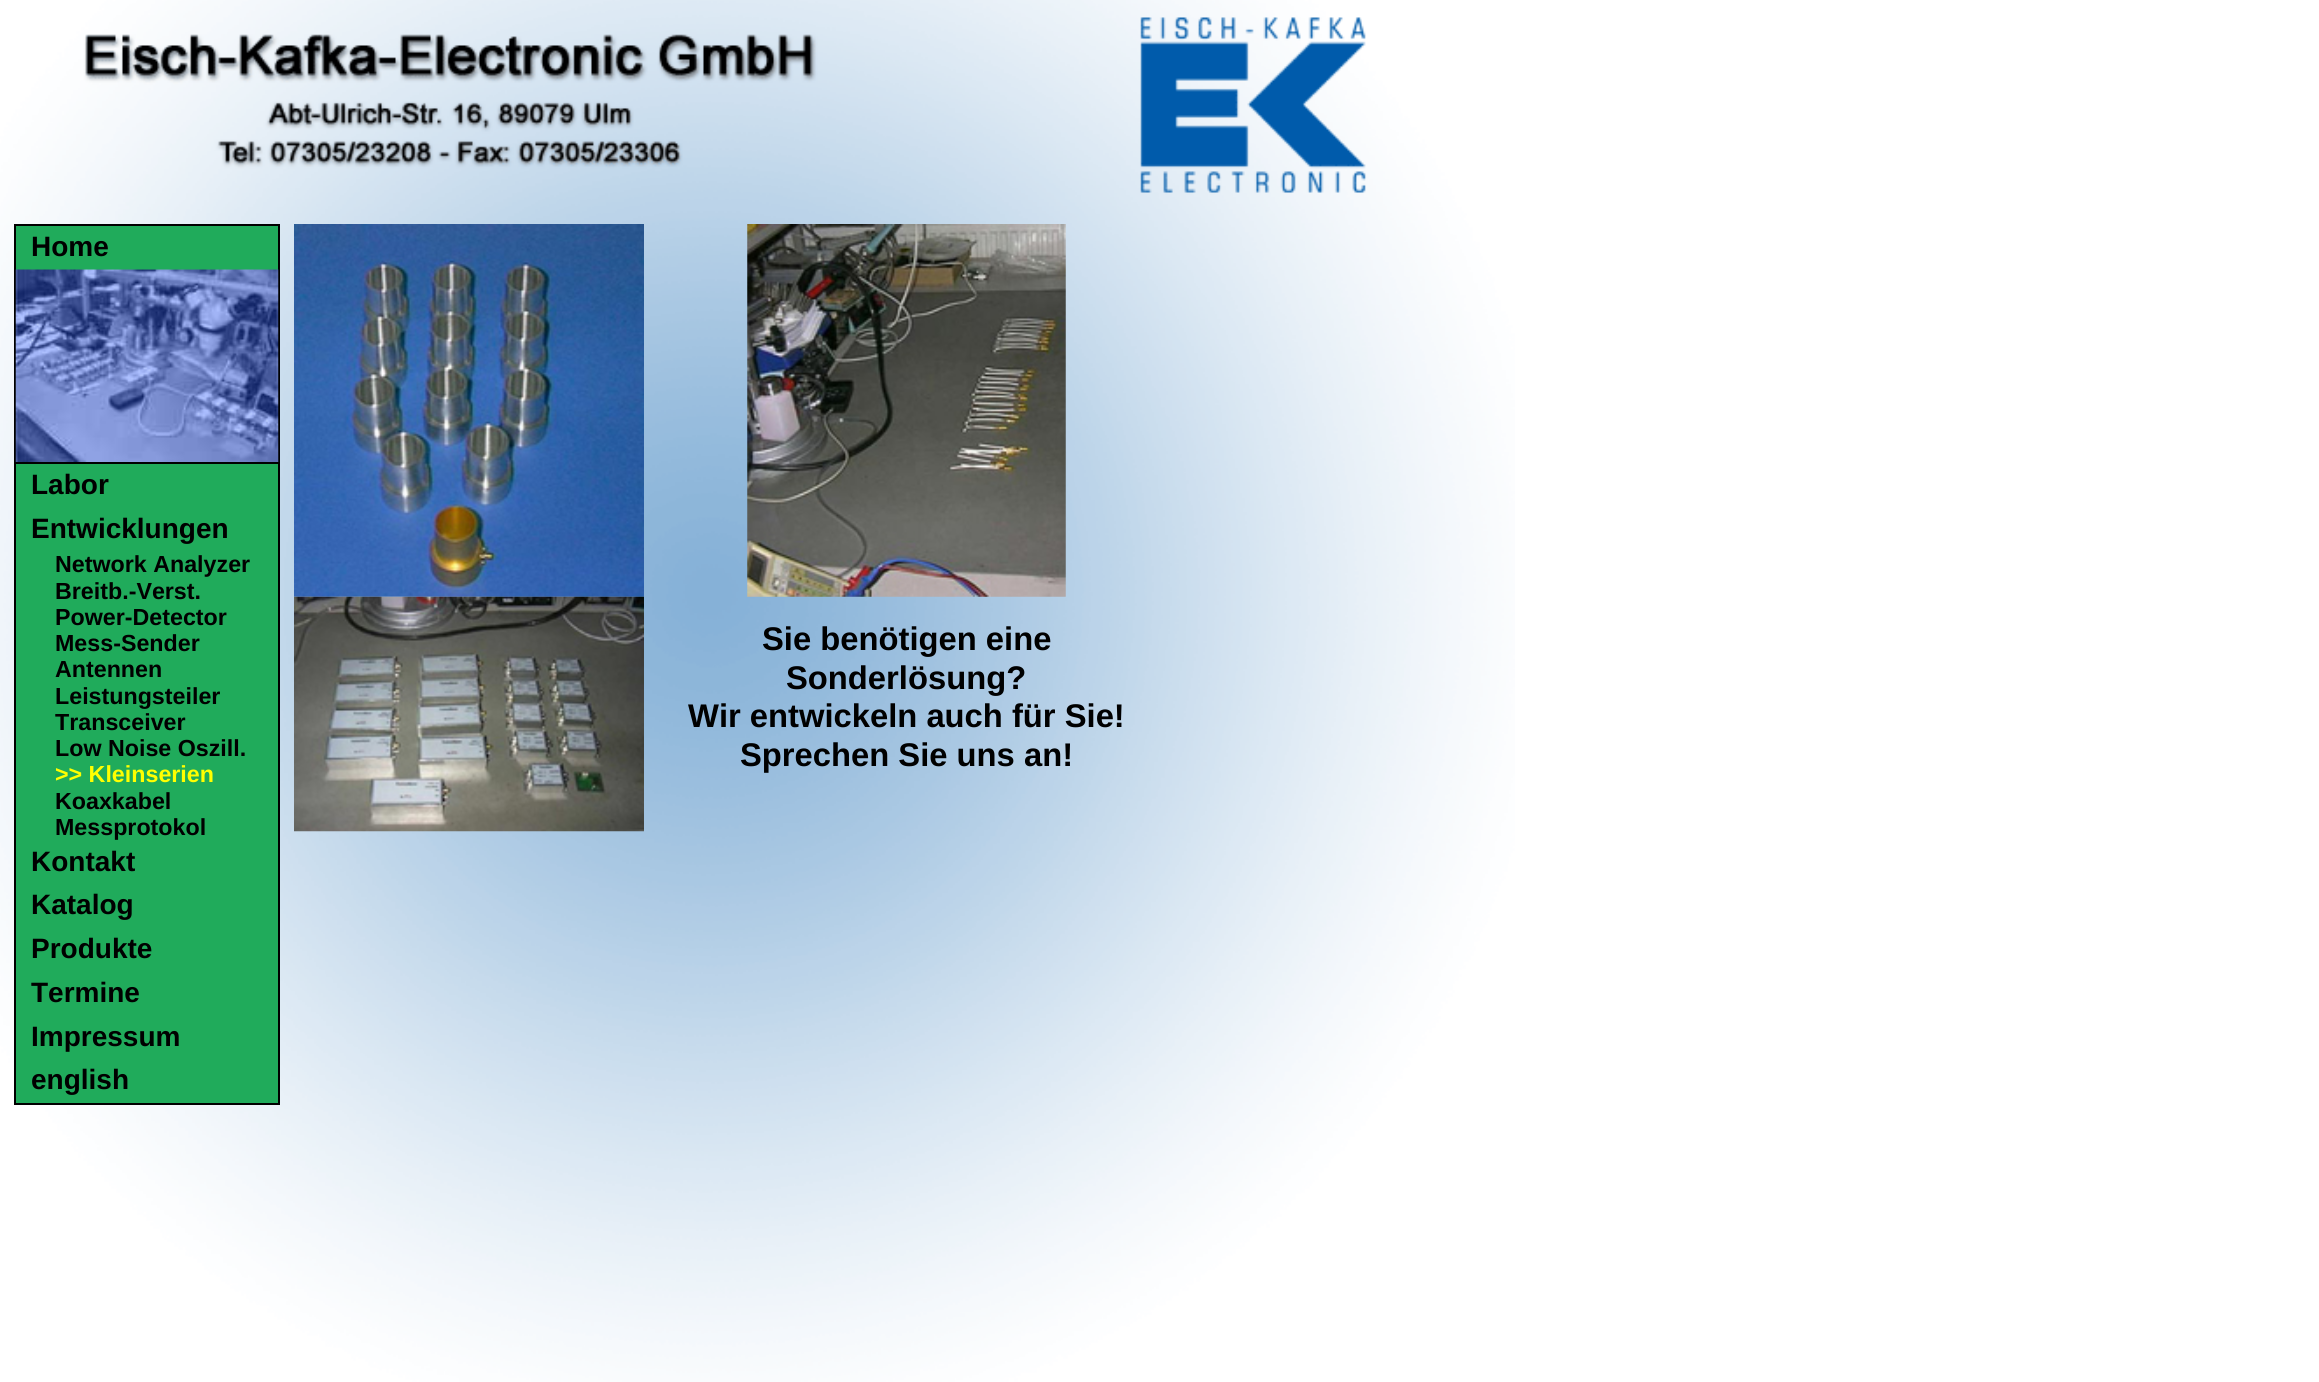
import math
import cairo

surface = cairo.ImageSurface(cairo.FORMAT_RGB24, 2319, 1382)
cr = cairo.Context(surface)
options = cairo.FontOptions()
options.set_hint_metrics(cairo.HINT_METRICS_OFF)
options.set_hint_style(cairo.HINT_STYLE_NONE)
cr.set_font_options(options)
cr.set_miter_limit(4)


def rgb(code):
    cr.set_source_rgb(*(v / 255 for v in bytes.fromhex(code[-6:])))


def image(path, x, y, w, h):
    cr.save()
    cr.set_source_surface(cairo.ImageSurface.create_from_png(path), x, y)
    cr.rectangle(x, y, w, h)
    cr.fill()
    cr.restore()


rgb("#ffffff")
cr.paint()
image("img/1.png", 0, 0, 1515, 1382)
for x, y, w, h, color in [
    (14, 224, 266, 2, "#000000"),
    (14, 226, 2, 879, "#000000"),
    (16, 226, 262, 44, "#20ab5b"),
    (278, 226, 2, 236, "#000000"),
]:
    rgb(color)
    cr.rectangle(x, y, w, h)
    cr.fill()
image("img/2.png", 15, 269, 264, 193)
for x, y, w, h, color in [
    (16, 462, 264, 2, "#000000"),
    (16, 464, 262, 639, "#20ab5b"),
    (278, 464, 2, 639, "#000000"),
    (16, 1103, 264, 2, "#000000"),
]:
    rgb(color)
    cr.rectangle(x, y, w, h)
    cr.fill()
image("img/3.png", 294, 224, 350, 373)
image("img/4.png", 747, 224, 319, 373)
image("img/5.png", 294, 596, 350, 236)
cr.select_font_face("Liberation Sans", cairo.FONT_SLANT_NORMAL, cairo.FONT_WEIGHT_BOLD)
cr.set_font_size(28)
for x, y, s in [
    (31, 256, "Home"),
    (31, 494, "Labor"),
    (31, 538, "Entwicklungen"),
]:
    cr.move_to(x, y)
    cr.show_text(s)
cr.set_font_size(23.25)
for x, y, s in [
    (55, 572, "Network Analyzer"),
    (55, 599, "Breitb.-Verst."),
    (55, 625, "Power-Detector"),
    (55, 651, "Mess-Sender"),
    (55, 677, "Antennen"),
    (55, 704, "Leistungsteiler"),
    (55, 730, "Transceiver"),
    (55, 756, "Low Noise Oszill."),
]:
    cr.move_to(x, y)
    cr.show_text(s)
rgb("#ffff00")
cr.move_to(55, 782)
cr.show_text(">> Kleinserien")
rgb("#000000")
cr.move_to(55, 809)
cr.show_text("Koaxkabel")
cr.move_to(55, 835)
cr.show_text("Messprotokol")
cr.set_font_size(28)
for x, y, s in [
    (31, 871, "Kontakt"),
    (31, 914, "Katalog"),
    (31, 958, "Produkte"),
    (31, 1002, "Termine"),
    (31, 1046, "Impressum"),
    (31, 1089, "english"),
]:
    cr.move_to(x, y)
    cr.show_text(s)
cr.set_font_size(32.75)
for x, y, s in [
    (762, 650, "Sie benötigen eine"),
    (786, 689, "Sonderlösung?"),
    (688, 727, "Wir entwickeln auch für Sie!"),
    (740, 766, "Sprechen Sie uns an!"),
]:
    cr.move_to(x, y)
    cr.show_text(s)
surface.write_to_png("page.png")
